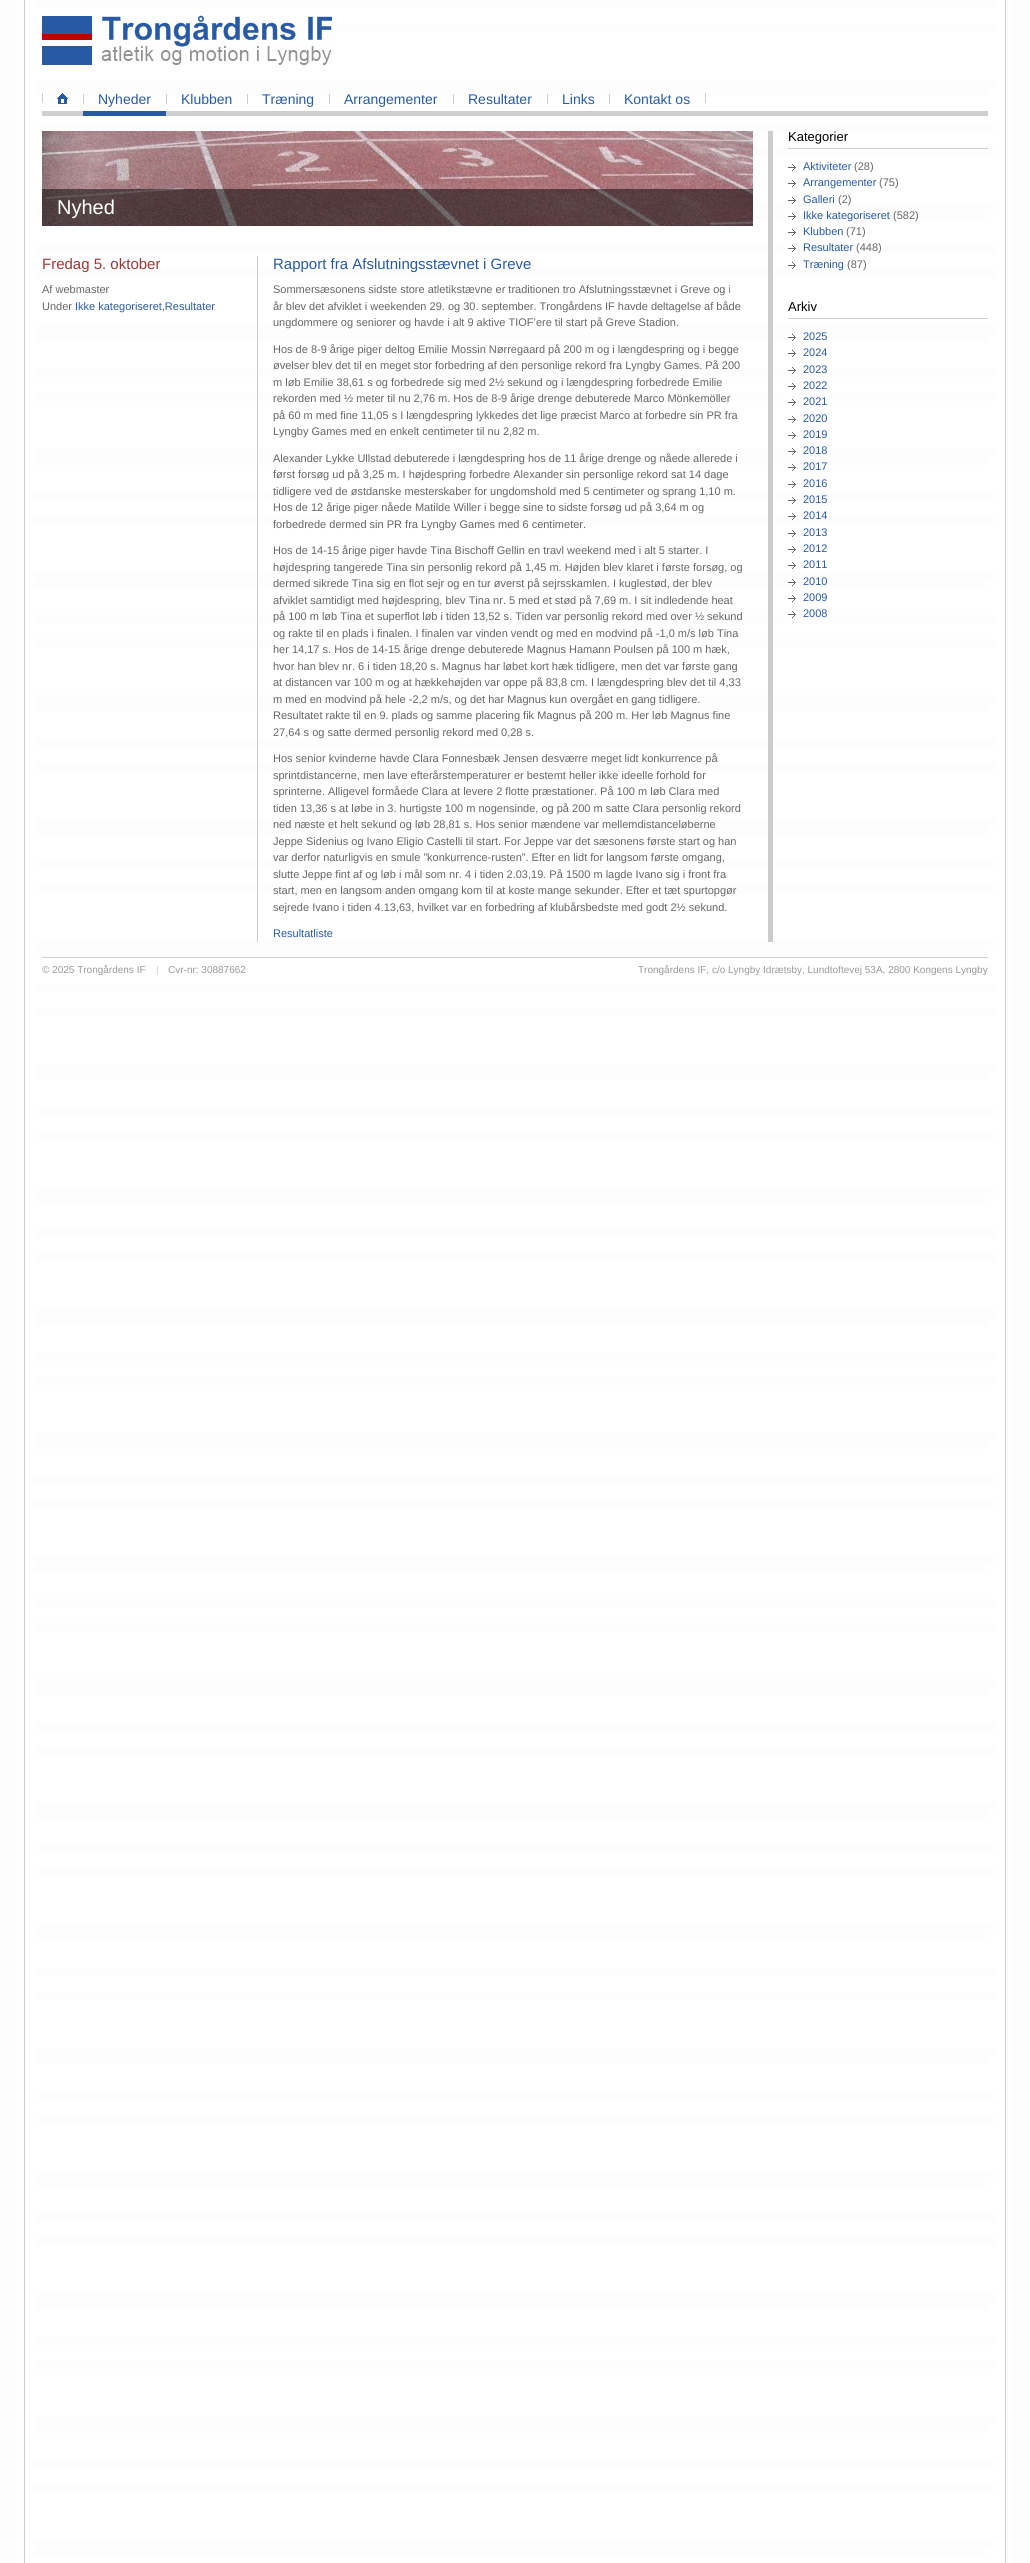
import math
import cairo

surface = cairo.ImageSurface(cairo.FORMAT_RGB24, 1030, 2563)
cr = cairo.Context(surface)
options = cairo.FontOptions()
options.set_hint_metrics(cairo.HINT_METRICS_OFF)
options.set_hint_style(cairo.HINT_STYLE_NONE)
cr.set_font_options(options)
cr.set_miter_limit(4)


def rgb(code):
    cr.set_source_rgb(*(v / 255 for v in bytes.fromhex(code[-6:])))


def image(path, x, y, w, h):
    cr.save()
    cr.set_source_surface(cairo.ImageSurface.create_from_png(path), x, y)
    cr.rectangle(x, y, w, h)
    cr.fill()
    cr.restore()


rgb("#ffffff")
cr.paint()
image("img/1.png", 0, 0, 1030, 2563)
image("img/2.png", 42, 15, 290, 50)
for x, y, w, h, color in [
    (42, 93, 1, 10, "#cccccc"),
    (42, 111, 946, 5, "#cfcfcf"),
    (705, 93, 1, 10, "#cccccc"),
]:
    rgb(color)
    cr.rectangle(x, y, w, h)
    cr.fill()
image("img/3.png", 57, 93, 11, 11)
for x, y, w, h, color in [
    (83, 94, 1, 10, "#cccccc"),
    (83, 111, 83, 5, "#285aa4"),
    (166, 94, 1, 10, "#cccccc"),
    (247, 94, 1, 10, "#cccccc"),
    (329, 94, 1, 10, "#cccccc"),
    (453, 94, 1, 10, "#cccccc"),
    (547, 94, 1, 10, "#cccccc"),
    (609, 94, 1, 10, "#cccccc"),
    (768, 131, 5, 811, "#cccccc"),
]:
    rgb(color)
    cr.rectangle(x, y, w, h)
    cr.fill()
image("img/4.png", 42, 131, 711, 95)
rgb("#cfcfcf")
cr.rectangle(788, 148, 200, 1)
cr.fill()
image("img/5.png", 788, 164, 8, 7)
image("img/5.png", 788, 180, 8, 7)
image("img/5.png", 788, 197, 8, 7)
image("img/5.png", 788, 213, 8, 7)
image("img/5.png", 788, 229, 8, 7)
image("img/5.png", 788, 245, 8, 7)
image("img/5.png", 788, 262, 8, 7)
cr.rectangle(788, 318, 200, 1)
cr.fill()
image("img/5.png", 788, 334, 8, 7)
image("img/5.png", 788, 350, 8, 7)
image("img/5.png", 788, 367, 8, 7)
image("img/5.png", 788, 383, 8, 7)
image("img/5.png", 788, 399, 8, 7)
image("img/5.png", 788, 416, 8, 7)
image("img/5.png", 788, 432, 8, 7)
image("img/5.png", 788, 448, 8, 7)
image("img/5.png", 788, 464, 8, 7)
image("img/5.png", 788, 481, 8, 7)
image("img/5.png", 788, 497, 8, 7)
image("img/5.png", 788, 513, 8, 7)
image("img/5.png", 788, 530, 8, 7)
image("img/5.png", 788, 546, 8, 7)
image("img/5.png", 788, 562, 8, 7)
image("img/5.png", 788, 579, 8, 7)
image("img/5.png", 788, 595, 8, 7)
image("img/5.png", 788, 611, 8, 7)
cr.set_source_rgba(0, 0, 0, 0.5)
cr.rectangle(42, 189, 711, 37)
cr.fill()
rgb("#cccccc")
cr.rectangle(257, 256, 1, 686)
cr.fill()
rgb("#cfcfcf")
cr.rectangle(42, 957, 946, 1)
cr.fill()
cr.select_font_face("Liberation Sans")
cr.set_font_size(14)
rgb("#285aa4")
for x, y, s in [
    (98, 104, "Nyheder"),
    (181, 104, "Klubben"),
    (262, 104, "Træning"),
    (344, 104, "Arrangementer"),
    (468, 104, "Resultater"),
    (562, 104, "Links"),
    (624, 104, "Kontakt os"),
]:
    cr.move_to(x, y)
    cr.show_text(s)
cr.set_font_size(13)
rgb("#000000")
cr.move_to(788, 141)
cr.show_text("Kategorier")
cr.set_font_size(11)
rgb("#285aa4")
cr.move_to(803, 170)
cr.show_text("Aktiviteter")
rgb("#666666")
cr.move_to(854, 170)
cr.show_text("(28)")
rgb("#285aa4")
cr.move_to(803, 186)
cr.show_text("Arrangementer")
rgb("#666666")
cr.move_to(879, 186)
cr.show_text("(75)")
rgb("#285aa4")
cr.move_to(803, 203)
cr.show_text("Galleri")
rgb("#666666")
cr.move_to(838, 203)
cr.show_text("(2)")
rgb("#285aa4")
cr.move_to(803, 219)
cr.show_text("Ikke kategoriseret")
rgb("#666666")
cr.move_to(893, 219)
cr.show_text("(582)")
rgb("#285aa4")
cr.move_to(803, 235)
cr.show_text("Klubben")
rgb("#666666")
cr.move_to(846, 235)
cr.show_text("(71)")
rgb("#285aa4")
cr.move_to(803, 251)
cr.show_text("Resultater")
rgb("#666666")
cr.move_to(856, 251)
cr.show_text("(448)")
rgb("#285aa4")
cr.move_to(803, 268)
cr.show_text("Træning")
rgb("#666666")
cr.move_to(847, 268)
cr.show_text("(87)")
cr.set_font_size(13)
rgb("#000000")
cr.move_to(788, 311)
cr.show_text("Arkiv")
cr.set_font_size(11)
rgb("#285aa4")
for x, y, s in [
    (803, 340, "2025"),
    (803, 356, "2024"),
    (803, 373, "2023"),
    (803, 389, "2022"),
    (803, 405, "2021"),
    (803, 422, "2020"),
    (803, 438, "2019"),
    (803, 454, "2018"),
    (803, 470, "2017"),
    (803, 487, "2016"),
    (803, 503, "2015"),
    (803, 519, "2014"),
    (803, 536, "2013"),
    (803, 552, "2012"),
    (803, 568, "2011"),
    (803, 585, "2010"),
    (803, 601, "2009"),
    (803, 617, "2008"),
]:
    cr.move_to(x, y)
    cr.show_text(s)
cr.set_font_size(20)
rgb("#ffffff")
cr.move_to(57, 214)
cr.show_text("Nyhed")
cr.set_font_size(15)
rgb("#9e3737")
cr.move_to(42, 269)
cr.show_text("Fredag 5. oktober")
cr.set_font_size(11)
rgb("#666666")
cr.move_to(42, 293)
cr.show_text("Af webmaster")
cr.move_to(42, 310)
cr.show_text("Under")
rgb("#285aa4")
cr.move_to(75, 310)
cr.show_text("Ikke kategoriseret Resultater")
rgb("#666666")
cr.move_to(162, 310)
cr.show_text(",")
cr.set_font_size(15)
rgb("#285aa4")
cr.move_to(273, 269)
cr.show_text("Rapport fra Afslutningsstævnet i Greve")
cr.set_font_size(11)
rgb("#666666")
for x, y, s in [
    (273, 293, "Sommersæsonens sidste store atletikstævne er traditionen tro Afslutningsstævnet i Greve og i"),
    (273, 310, "år blev det afviklet i weekenden 29. og 30. september. Trongårdens IF havde deltagelse af både"),
    (273, 326, "ungdommere og seniorer og havde i alt 9 aktive TIOF’ere til start på Greve Stadion."),
    (273, 353, "Hos de 8-9 årige piger deltog Emilie Mossin Nørregaard på 200 m og i længdespring og i begge"),
    (273, 369, "øvelser blev det til en meget stor forbedring af den personlige rekord fra Lyngby Games. På 200"),
    (273, 386, "m løb Emilie 38,61 s og forbedrede sig med 2½ sekund og i længdespring forbedrede Emilie"),
    (273, 402, "rekorden med ½ meter til nu 2,76 m. Hos de 8-9 årige drenge debuterede Marco Mönkemöller"),
    (273, 419, "på 60 m med fine 11,05 s I længdespring lykkedes det lige præcist Marco at forbedre sin PR fra"),
    (273, 435, "Lyngby Games med en enkelt centimeter til nu 2,82 m."),
    (273, 462, "Alexander Lykke Ullstad debuterede i længdespring hos de 11 årige drenge og nåede allerede i"),
    (273, 478, "først forsøg ud på 3,25 m. I højdespring forbedre Alexander sin personlige rekord sat 14 dage"),
    (273, 495, "tidligere ved de østdanske mesterskaber for ungdomshold med 5 centimeter og sprang 1,10 m."),
    (273, 511, "Hos de 12 årige piger nåede Matilde Willer i begge sine to sidste forsøg ud på 3,64 m og"),
    (273, 528, "forbedrede dermed sin PR fra Lyngby Games med 6 centimeter."),
    (273, 554, "Hos de 14-15 årige piger havde Tina Bischoff Gellin en travl weekend med i alt 5 starter. I"),
    (273, 571, "højdespring tangerede Tina sin personlig rekord på 1,45 m. Højden blev klaret i første forsøg, og"),
    (273, 587, "dermed sikrede Tina sig en flot sejr og en tur øverst på sejrsskamlen. I kuglestød, der blev"),
    (273, 604, "afviklet samtidigt med højdespring, blev Tina nr. 5 med et stød på 7,69 m. I sit indledende heat"),
    (273, 620, "på 100 m løb Tina et superflot løb i tiden 13,52 s. Tiden var personlig rekord med over ½ sekund"),
    (273, 637, "og rakte til en plads i finalen. I finalen var vinden vendt og med en modvind på -1,0 m/s løb Tina"),
    (273, 653, "her 14,17 s. Hos de 14-15 årige drenge debuterede Magnus Hamann Poulsen på 100 m hæk,"),
    (273, 670, "hvor han blev nr. 6 i tiden 18,20 s. Magnus har løbet kort hæk tidligere, men det var første gang"),
    (273, 686, "at distancen var 100 m og at hækkehøjden var oppe på 83,8 cm. I længdespring blev det til 4,33"),
    (273, 703, "m med en modvind på hele -2,2 m/s, og det har Magnus kun overgået en gang tidligere."),
    (273, 719, "Resultatet rakte til en 9. plads og samme placering fik Magnus på 200 m. Her løb Magnus fine"),
    (273, 736, "27,64 s og satte dermed personlig rekord med 0,28 s."),
    (273, 762, "Hos senior kvinderne havde Clara Fonnesbæk Jensen desværre meget lidt konkurrence på"),
    (273, 779, "sprintdistancerne, men lave efterårstemperaturer er bestemt heller ikke ideelle forhold for"),
    (273, 795, "sprinterne. Alligevel formåede Clara at levere 2 flotte præstationer. På 100 m løb Clara med"),
    (273, 812, "tiden 13,36 s at løbe in 3. hurtigste 100 m nogensinde, og på 200 m satte Clara personlig rekord"),
    (273, 828, "ned næste et helt sekund og løb 28,81 s. Hos senior mændene var mellemdistanceløberne"),
    (273, 845, "Jeppe Sidenius og Ivano Eligio Castelli til start. For Jeppe var det sæsonens første start og han"),
    (273, 861, "var derfor naturligvis en smule ”konkurrence-rusten”. Efter en lidt for langsom første omgang,"),
    (273, 878, "slutte Jeppe fint af og løb i mål som nr. 4 i tiden 2.03,19. På 1500 m lagde Ivano sig i front fra"),
    (273, 894, "start, men en langsom anden omgang kom til at koste mange sekunder. Efter et tæt spurtopgør"),
    (273, 911, "sejrede Ivano i tiden 4.13,63, hvilket var en forbedring af klubårsbedste med godt 2½ sekund."),
]:
    cr.move_to(x, y)
    cr.show_text(s)
rgb("#285aa4")
cr.move_to(273, 937)
cr.show_text("Resultatliste")
cr.set_font_size(10)
rgb("#999999")
cr.move_to(42, 973)
cr.show_text("© 2025 Trongårdens IF")
rgb("#cccccc")
cr.move_to(156, 973)
cr.show_text("|")
rgb("#999999")
cr.move_to(168, 973)
cr.show_text("Cvr-nr: 30887662")
cr.move_to(638, 973)
cr.show_text("Trongårdens IF, c/o Lyngby Idrætsby, Lundtoftevej 53A, 2800 Kongens Lyngby")
surface.write_to_png("page.png")
